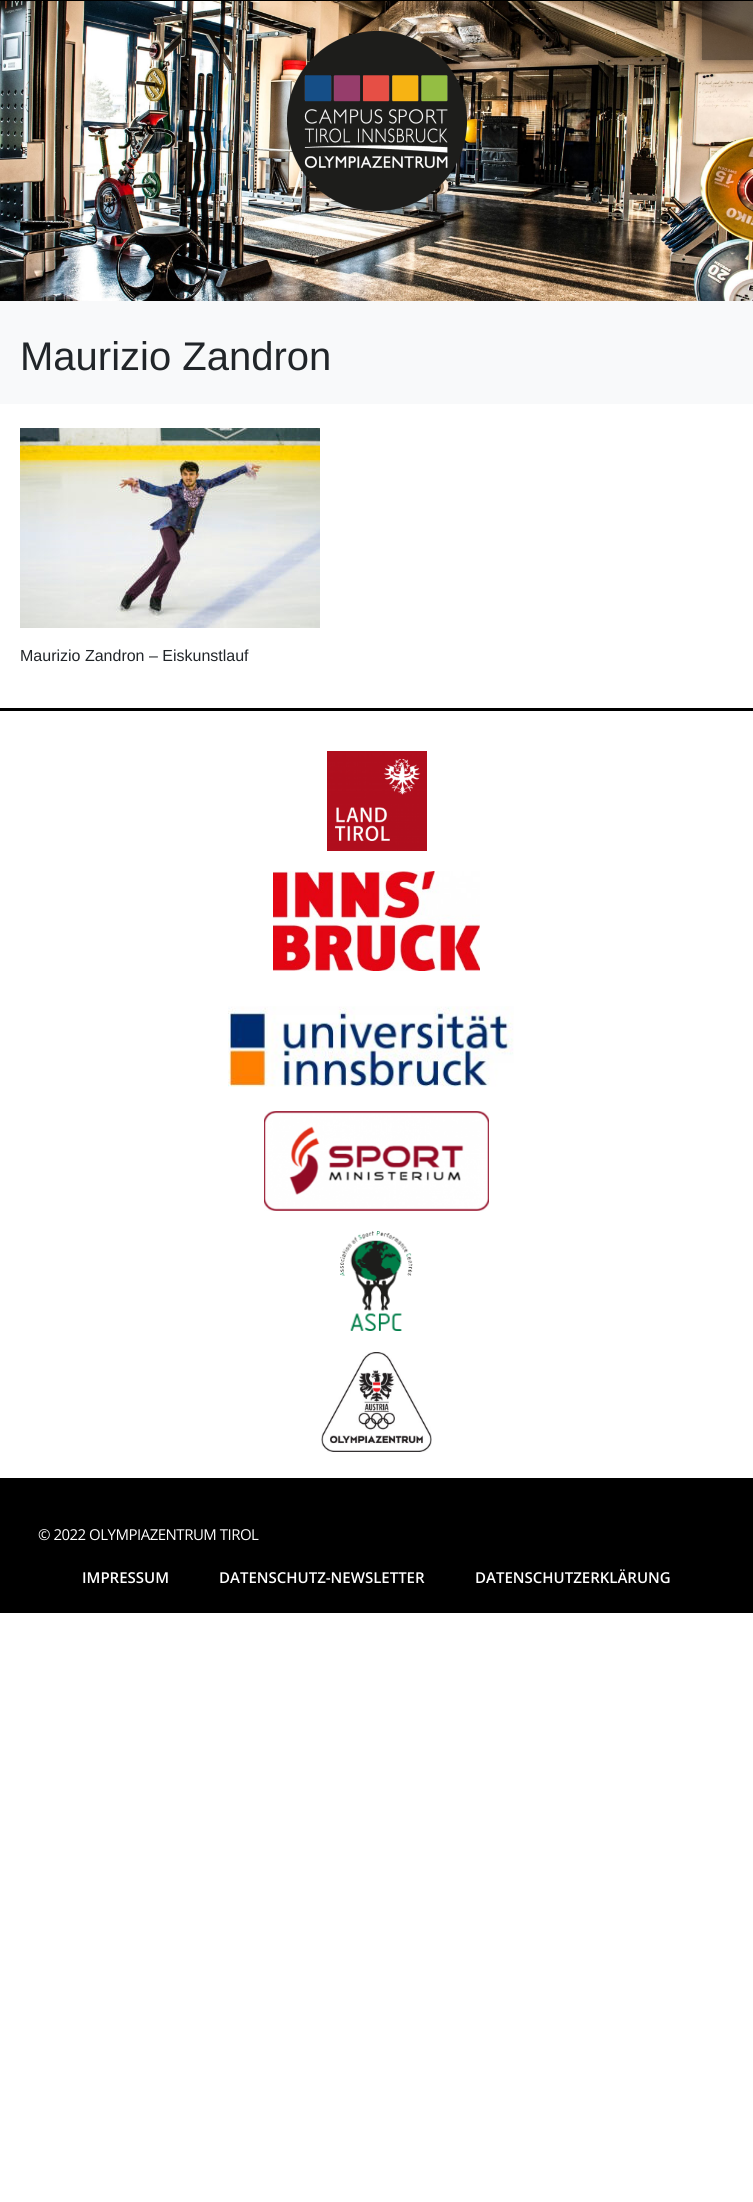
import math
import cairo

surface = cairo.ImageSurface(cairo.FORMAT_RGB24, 753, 2202)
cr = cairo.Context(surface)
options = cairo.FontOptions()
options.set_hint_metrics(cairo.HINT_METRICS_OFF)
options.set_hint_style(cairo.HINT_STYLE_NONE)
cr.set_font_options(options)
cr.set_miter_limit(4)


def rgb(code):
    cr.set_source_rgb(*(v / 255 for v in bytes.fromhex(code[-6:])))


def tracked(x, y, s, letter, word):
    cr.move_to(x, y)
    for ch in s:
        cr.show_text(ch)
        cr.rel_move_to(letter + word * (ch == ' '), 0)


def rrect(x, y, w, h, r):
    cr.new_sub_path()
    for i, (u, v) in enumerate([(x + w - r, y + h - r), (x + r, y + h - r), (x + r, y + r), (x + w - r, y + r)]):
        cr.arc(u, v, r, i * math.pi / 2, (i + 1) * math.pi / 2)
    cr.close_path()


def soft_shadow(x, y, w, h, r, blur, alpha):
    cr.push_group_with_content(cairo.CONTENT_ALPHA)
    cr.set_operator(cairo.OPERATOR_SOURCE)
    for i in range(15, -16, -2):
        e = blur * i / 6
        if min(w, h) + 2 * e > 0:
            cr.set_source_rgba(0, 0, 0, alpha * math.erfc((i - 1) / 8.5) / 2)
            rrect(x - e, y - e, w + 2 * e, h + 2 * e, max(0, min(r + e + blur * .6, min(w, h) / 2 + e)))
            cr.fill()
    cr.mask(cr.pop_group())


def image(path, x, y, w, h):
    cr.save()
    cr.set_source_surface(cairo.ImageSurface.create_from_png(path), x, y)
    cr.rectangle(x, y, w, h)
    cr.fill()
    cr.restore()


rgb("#ffffff")
cr.paint()
rgb("#000000")
cr.rectangle(0, 0, 753, 1)
cr.fill()
image("img/1.png", 0, 1, 753, 300)
cr.save()
cr.set_fill_rule(cairo.FILL_RULE_EVEN_ODD)
cr.new_path()
cr.move_to(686, 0)
cr.line_to(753, 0)
cr.line_to(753, 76)
cr.line_to(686, 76)
cr.close_path()
cr.move_to(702, 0)
cr.line_to(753, 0)
cr.line_to(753, 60)
cr.line_to(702, 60)
cr.close_path()
cr.clip()
rgb("#000000")
soft_shadow(702, 0, 51, 60, 0, 5, 0.5)
cr.restore()
cr.set_source_rgba(0, 0, 0, 0.46)
cr.rectangle(702, 1, 51, 59)
cr.fill()
image("img/2.png", 287, 31, 180, 180)
rgb("#f8f9fa")
cr.rectangle(0, 301, 753, 103)
cr.fill()
image("img/3.png", 20, 428, 300, 200)
rgb("#000000")
cr.rectangle(0, 708, 753, 3)
cr.fill()
image("img/4.png", 327, 751, 100, 100)
image("img/5.png", 273, 871, 207, 100)
image("img/6.png", 228, 1006, 286, 81)
image("img/7.png", 264, 1111, 225, 100)
image("img/8.png", 340, 1231, 73, 100)
image("img/9.png", 321, 1352, 111, 100)
cr.rectangle(0, 1478, 753, 135)
cr.fill()
cr.select_font_face("Liberation Sans")
cr.set_font_size(40)
rgb("#212529")
cr.move_to(20, 370)
cr.show_text("Maurizio Zandron")
cr.set_font_size(16)
cr.move_to(20, 661)
cr.show_text("Maurizio Zandron – Eiskunstlauf")
cr.select_font_face("Open Sans")
cr.set_font_size(15)
rgb("#ffffff")
tracked(38, 1540, "© 2022 OLYMPIAZENTRUM TIROL", -0.5, 0)
cr.select_font_face("Open Sans SemiBold")
for x, y, s in [
    (82, 1583, "IMPRESSUM"),
    (219, 1583, "DATENSCHUTZ-NEWSLETTER"),
    (475, 1583, "DATENSCHUTZERKLÄRUNG"),
]:
    cr.move_to(x, y)
    cr.show_text(s)
surface.write_to_png("page.png")
